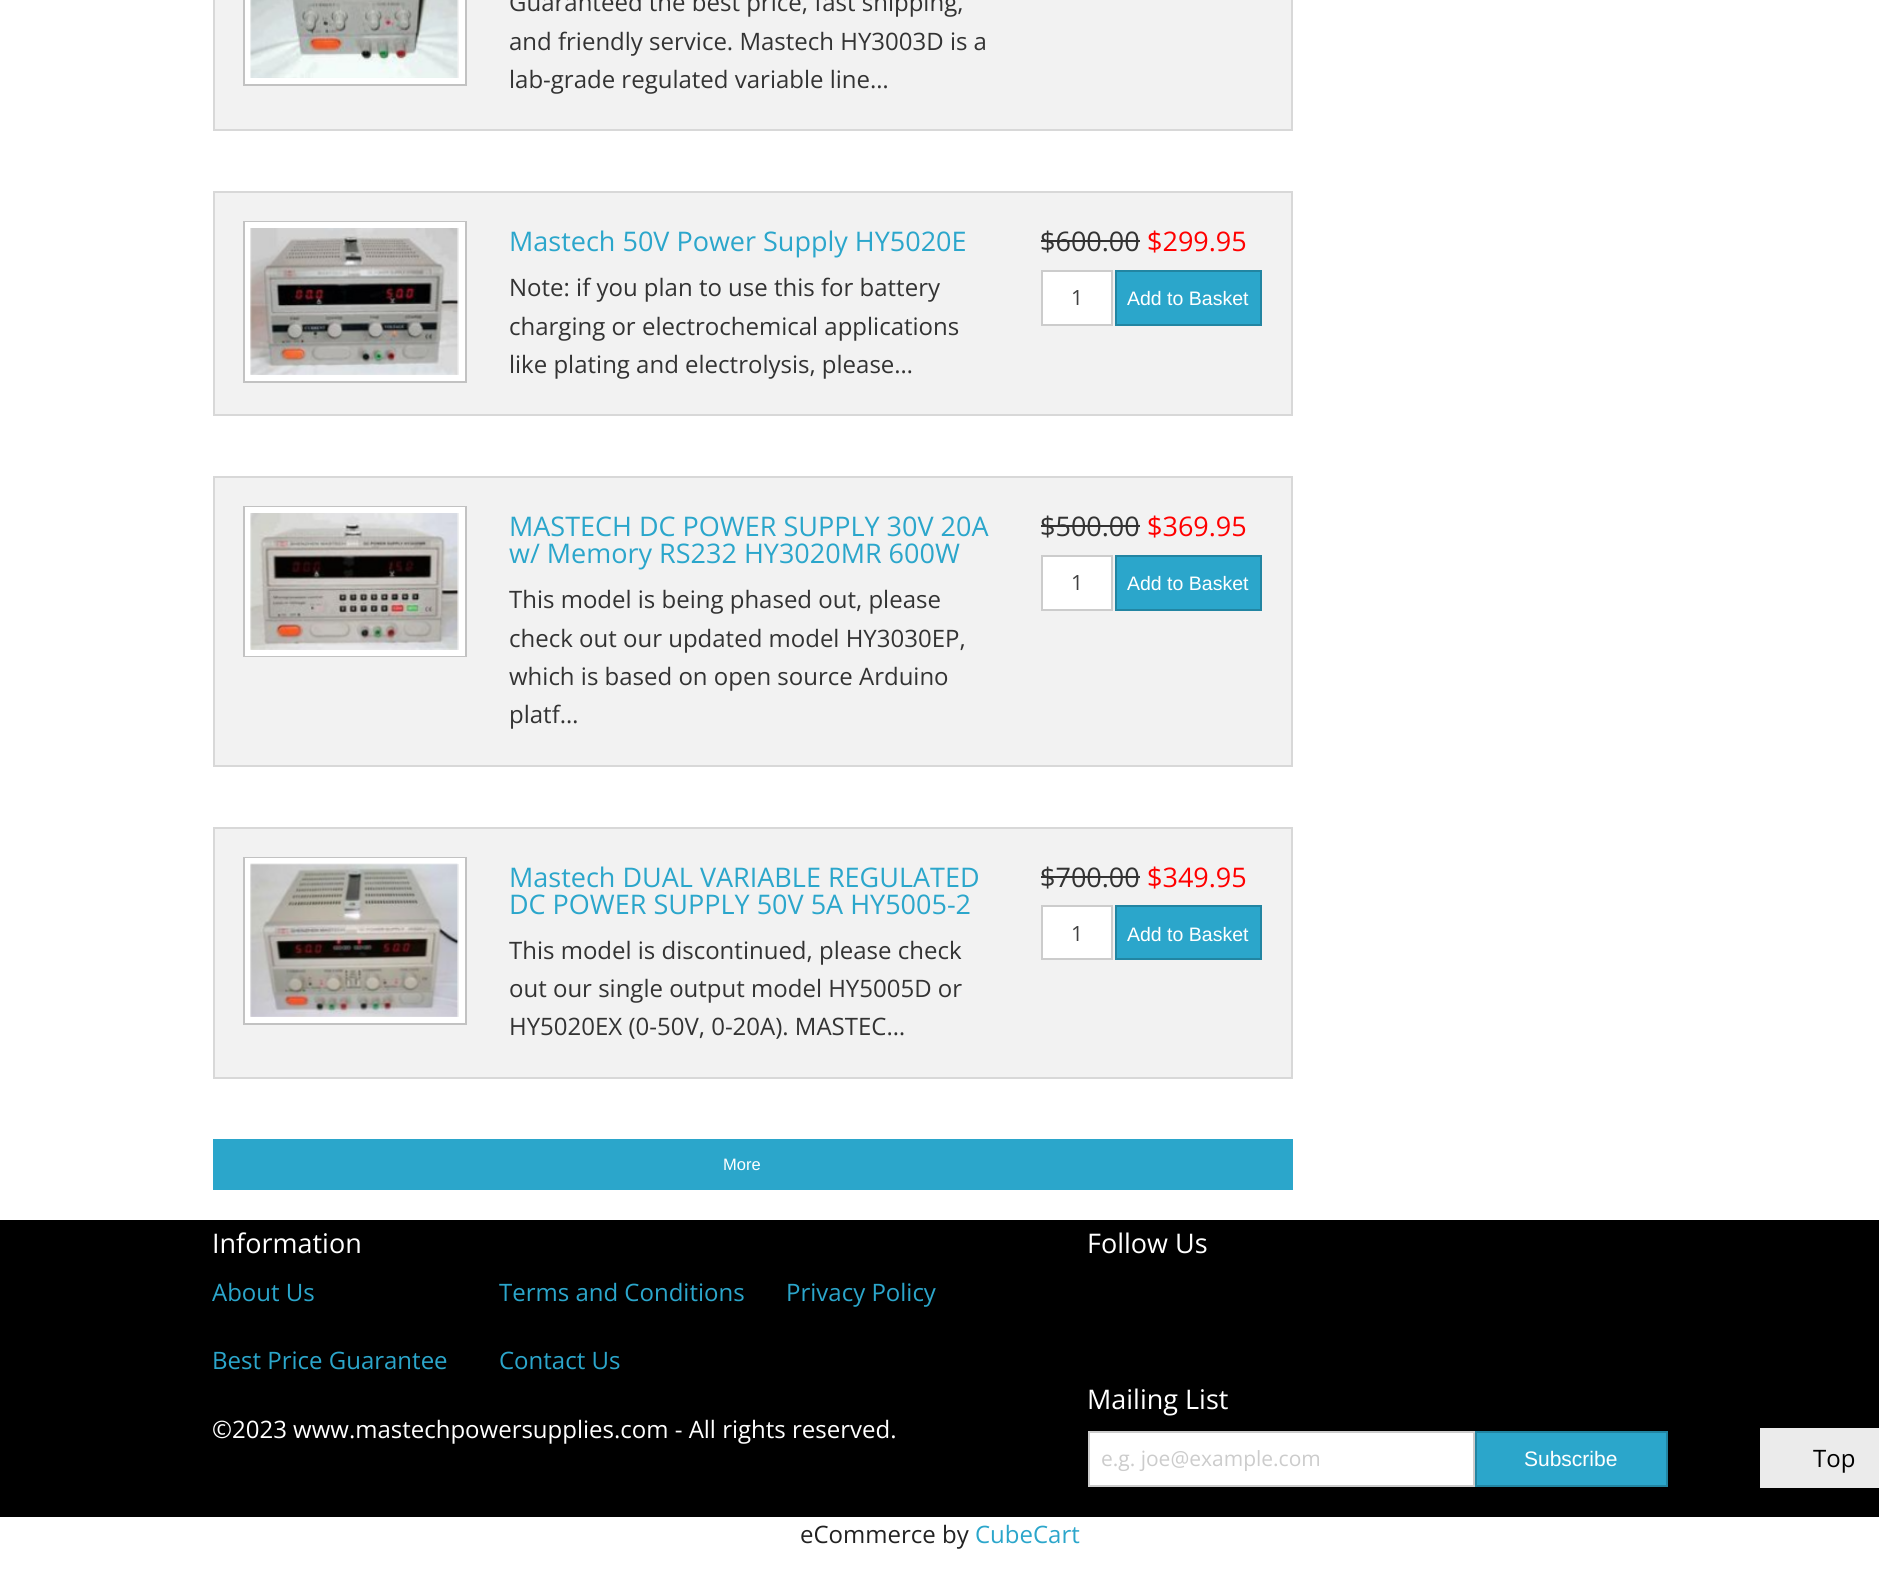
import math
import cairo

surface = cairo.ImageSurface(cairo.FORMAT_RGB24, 1879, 1583)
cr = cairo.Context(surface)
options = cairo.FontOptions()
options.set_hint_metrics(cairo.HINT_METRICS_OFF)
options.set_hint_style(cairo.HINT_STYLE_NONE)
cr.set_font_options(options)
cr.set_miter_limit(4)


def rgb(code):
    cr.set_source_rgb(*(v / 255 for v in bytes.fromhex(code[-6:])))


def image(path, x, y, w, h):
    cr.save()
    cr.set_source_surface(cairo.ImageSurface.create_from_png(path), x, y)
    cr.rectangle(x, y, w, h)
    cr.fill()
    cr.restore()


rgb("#ffffff")
cr.paint()
rgb("#f2f2f2")
cr.rectangle(214, -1, 1078, 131)
cr.fill_preserve()
rgb("#d8d8d8")
cr.stroke()
cr.rectangle(244, -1, 222, 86)
rgb("#c2c2c2")
cr.stroke()
cr.rectangle(248, -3, 214, 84)
rgb("#ffffff")
cr.set_line_width(6)
cr.stroke()
image("img/1.png", 250, 0, 208, 78)
rgb("#f2f2f2")
cr.rectangle(214, 192, 1078, 223)
cr.fill_preserve()
rgb("#d8d8d8")
cr.set_line_width(2)
cr.stroke()
cr.rectangle(244, 222, 222, 160)
rgb("#c2c2c2")
cr.stroke()
cr.rectangle(248, 225, 214, 153)
rgb("#ffffff")
cr.set_line_width(6)
cr.stroke()
image("img/2.png", 250, 228, 209, 147)
rgb("#333333")
cr.rectangle(1041, 240, 99, 2)
cr.fill()
rgb("#ffffff")
cr.rectangle(1042, 271, 70, 54)
cr.fill_preserve()
rgb("#cccccc")
cr.set_line_width(2)
cr.stroke()
rgb("#2ba6cb")
cr.rectangle(1116, 271, 145, 54)
cr.fill_preserve()
rgb("#2285a2")
cr.stroke()
rgb("#f2f2f2")
cr.rectangle(214, 477, 1078, 289)
cr.fill_preserve()
rgb("#d8d8d8")
cr.stroke()
cr.rectangle(244, 507, 222, 149)
rgb("#c2c2c2")
cr.stroke()
cr.rectangle(248, 510, 214, 143)
rgb("#ffffff")
cr.set_line_width(6)
cr.stroke()
image("img/3.png", 250, 513, 209, 137)
rgb("#333333")
cr.rectangle(1041, 525, 99, 2)
cr.fill()
rgb("#ffffff")
cr.rectangle(1042, 556, 70, 54)
cr.fill_preserve()
rgb("#cccccc")
cr.set_line_width(2)
cr.stroke()
rgb("#2ba6cb")
cr.rectangle(1116, 556, 145, 54)
cr.fill_preserve()
rgb("#2285a2")
cr.stroke()
rgb("#f2f2f2")
cr.rectangle(214, 828, 1078, 250)
cr.fill_preserve()
rgb("#d8d8d8")
cr.stroke()
cr.rectangle(244, 858, 222, 166)
rgb("#c2c2c2")
cr.stroke()
cr.rectangle(248, 861, 214, 159)
rgb("#ffffff")
cr.set_line_width(6)
cr.stroke()
image("img/4.png", 250, 863, 209, 154)
rgb("#333333")
cr.rectangle(1041, 876, 99, 2)
cr.fill()
rgb("#ffffff")
cr.rectangle(1042, 906, 70, 53)
cr.fill_preserve()
rgb("#cccccc")
cr.set_line_width(2)
cr.stroke()
rgb("#2ba6cb")
cr.rectangle(1116, 906, 145, 53)
cr.fill_preserve()
rgb("#2285a2")
cr.stroke()
for x, y, w, h, color in [
    (213, 1139, 1080, 51, "#2ba6cb"),
    (0, 1220, 1879, 297, "#000000"),
    (1760, 1428, 119, 60, "#ebebeb"),
]:
    rgb(color)
    cr.rectangle(x, y, w, h)
    cr.fill()
rgb("#ffffff")
cr.rectangle(1089, 1432, 385, 54)
cr.fill_preserve()
rgb("#cccccc")
cr.stroke()
rgb("#2ba6cb")
cr.rectangle(1476, 1432, 191, 54)
cr.fill_preserve()
rgb("#2285a2")
cr.stroke()
cr.select_font_face("Open Sans")
cr.set_font_size(24)
rgb("#333333")
for x, y, s in [
    (509, 11, "Guaranteed the best price, fast shipping,"),
    (509, 50, "and friendly service. Mastech HY3003D is a"),
    (509, 88, "lab-grade regulated variable line…"),
]:
    cr.move_to(x, y)
    cr.show_text(s)
cr.set_font_size(27)
rgb("#2ba6cb")
cr.move_to(509, 251)
cr.show_text("Mastech 50V Power Supply HY5020E")
cr.set_font_size(24)
rgb("#333333")
for x, y, s in [
    (509, 296, "Note: if you plan to use this for battery"),
    (509, 335, "charging or electrochemical applications"),
    (509, 373, "like plating and electrolysis, please…"),
]:
    cr.move_to(x, y)
    cr.show_text(s)
cr.set_font_size(27)
cr.move_to(1040, 251)
cr.show_text("$600.00")
rgb("#ff0000")
cr.move_to(1147, 251)
cr.show_text("$299.95")
cr.set_font_size(21)
rgb("#404040")
cr.move_to(1071, 305)
cr.show_text("1")
cr.select_font_face("Liberation Sans")
cr.set_font_size(19.5)
rgb("#ffffff")
cr.move_to(1127, 305)
cr.show_text("Add to Basket")
cr.select_font_face("Open Sans")
cr.set_font_size(27)
rgb("#2ba6cb")
cr.move_to(509, 536)
cr.show_text("MASTECH DC POWER SUPPLY 30V 20A")
cr.move_to(509, 563)
cr.show_text("w/ Memory RS232 HY3020MR 600W")
cr.set_font_size(24)
rgb("#333333")
for x, y, s in [
    (509, 608, "This model is being phased out, please"),
    (509, 647, "check out our updated model HY3030EP,"),
    (509, 685, "which is based on open source Arduino"),
    (509, 723, "platf…"),
]:
    cr.move_to(x, y)
    cr.show_text(s)
cr.set_font_size(27)
cr.move_to(1040, 536)
cr.show_text("$500.00")
rgb("#ff0000")
cr.move_to(1147, 536)
cr.show_text("$369.95")
cr.set_font_size(21)
rgb("#404040")
cr.move_to(1071, 590)
cr.show_text("1")
cr.select_font_face("Liberation Sans")
cr.set_font_size(19.5)
rgb("#ffffff")
cr.move_to(1127, 590)
cr.show_text("Add to Basket")
cr.select_font_face("Open Sans")
cr.set_font_size(27)
rgb("#2ba6cb")
cr.move_to(509, 887)
cr.show_text("Mastech DUAL VARIABLE REGULATED")
cr.move_to(509, 914)
cr.show_text("DC POWER SUPPLY 50V 5A HY5005-2")
cr.set_font_size(24)
rgb("#333333")
for x, y, s in [
    (509, 959, "This model is discontinued, please check"),
    (509, 997, "out our single output model HY5005D or"),
    (509, 1035, "HY5020EX (0-50V, 0-20A). MASTEC…"),
]:
    cr.move_to(x, y)
    cr.show_text(s)
cr.set_font_size(27)
cr.move_to(1040, 887)
cr.show_text("$700.00")
rgb("#ff0000")
cr.move_to(1147, 887)
cr.show_text("$349.95")
cr.set_font_size(21)
rgb("#404040")
cr.move_to(1071, 941)
cr.show_text("1")
cr.select_font_face("Liberation Sans")
cr.set_font_size(19.5)
rgb("#ffffff")
cr.move_to(1127, 941)
cr.show_text("Add to Basket")
cr.set_font_size(16.5)
cr.move_to(723, 1170)
cr.show_text("More")
cr.select_font_face("Open Sans")
cr.set_font_size(24)
rgb("#000000")
cr.move_to(1813, 1467)
cr.show_text("Top")
cr.set_font_size(27)
rgb("#ffffff")
cr.move_to(212, 1253)
cr.show_text("Information")
cr.set_font_size(24)
rgb("#2ba6cb")
for x, y, s in [
    (212, 1301, "About Us"),
    (499, 1301, "Terms and Conditions"),
    (786, 1301, "Privacy Policy"),
    (212, 1369, "Best Price Guarantee"),
    (499, 1369, "Contact Us"),
]:
    cr.move_to(x, y)
    cr.show_text(s)
rgb("#ffffff")
cr.move_to(212, 1438)
cr.show_text("©2023 www.mastechpowersupplies.com - All rights reserved.")
cr.set_font_size(27)
cr.move_to(1087, 1253)
cr.show_text("Follow Us")
cr.move_to(1087, 1409)
cr.show_text("Mailing List")
cr.set_font_size(21)
rgb("#cccccc")
cr.move_to(1101, 1466)
cr.show_text("e.g. joe@example.com")
cr.select_font_face("Liberation Sans")
rgb("#ffffff")
cr.move_to(1524, 1466)
cr.show_text("Subscribe")
cr.select_font_face("Open Sans")
cr.set_font_size(24)
rgb("#222222")
cr.move_to(800, 1543)
cr.show_text("eCommerce by")
rgb("#2ba6cb")
cr.move_to(975, 1543)
cr.show_text("CubeCart")
surface.write_to_png("page.png")
